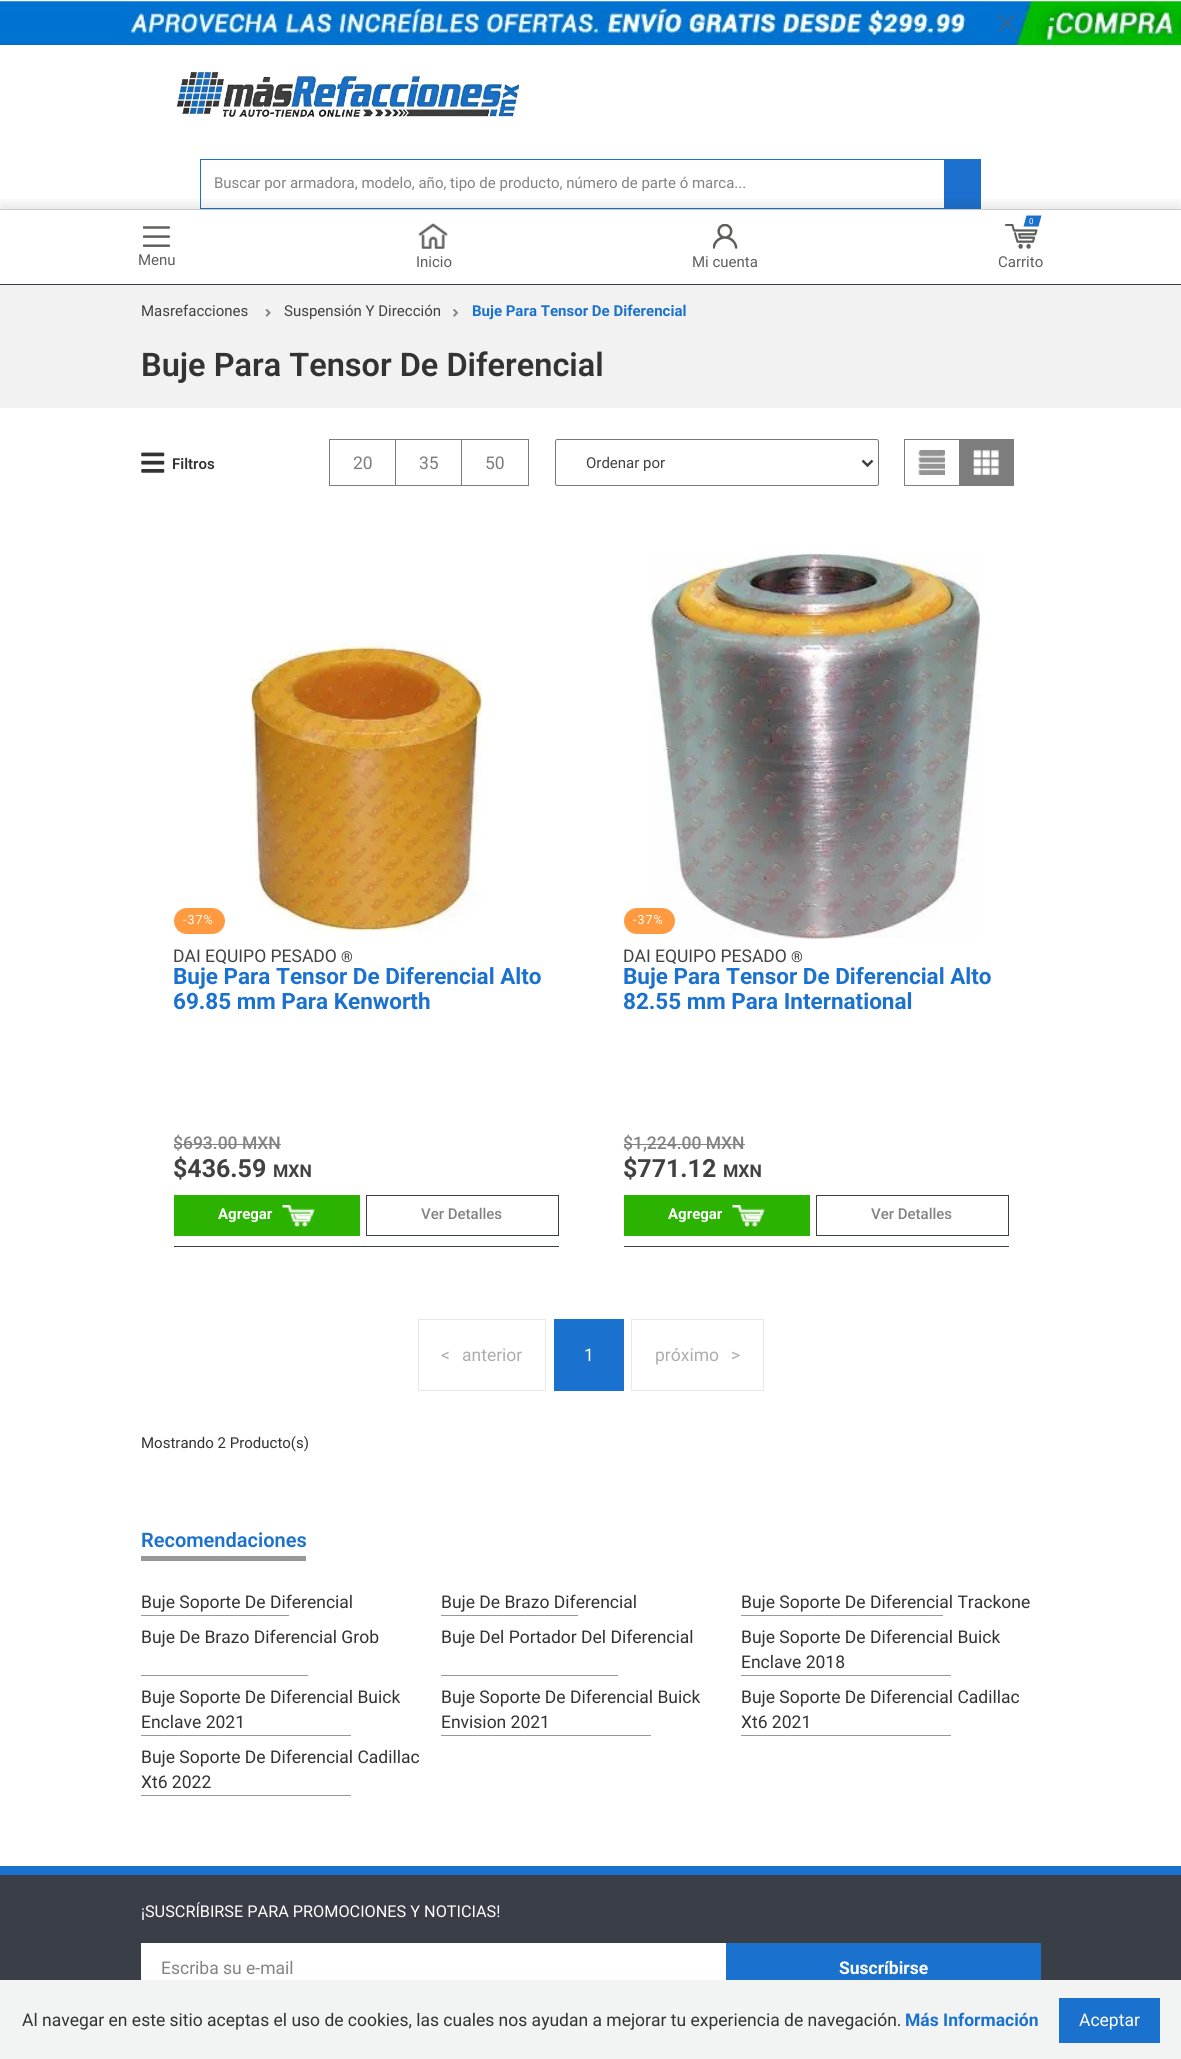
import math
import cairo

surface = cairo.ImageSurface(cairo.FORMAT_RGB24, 1181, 2059)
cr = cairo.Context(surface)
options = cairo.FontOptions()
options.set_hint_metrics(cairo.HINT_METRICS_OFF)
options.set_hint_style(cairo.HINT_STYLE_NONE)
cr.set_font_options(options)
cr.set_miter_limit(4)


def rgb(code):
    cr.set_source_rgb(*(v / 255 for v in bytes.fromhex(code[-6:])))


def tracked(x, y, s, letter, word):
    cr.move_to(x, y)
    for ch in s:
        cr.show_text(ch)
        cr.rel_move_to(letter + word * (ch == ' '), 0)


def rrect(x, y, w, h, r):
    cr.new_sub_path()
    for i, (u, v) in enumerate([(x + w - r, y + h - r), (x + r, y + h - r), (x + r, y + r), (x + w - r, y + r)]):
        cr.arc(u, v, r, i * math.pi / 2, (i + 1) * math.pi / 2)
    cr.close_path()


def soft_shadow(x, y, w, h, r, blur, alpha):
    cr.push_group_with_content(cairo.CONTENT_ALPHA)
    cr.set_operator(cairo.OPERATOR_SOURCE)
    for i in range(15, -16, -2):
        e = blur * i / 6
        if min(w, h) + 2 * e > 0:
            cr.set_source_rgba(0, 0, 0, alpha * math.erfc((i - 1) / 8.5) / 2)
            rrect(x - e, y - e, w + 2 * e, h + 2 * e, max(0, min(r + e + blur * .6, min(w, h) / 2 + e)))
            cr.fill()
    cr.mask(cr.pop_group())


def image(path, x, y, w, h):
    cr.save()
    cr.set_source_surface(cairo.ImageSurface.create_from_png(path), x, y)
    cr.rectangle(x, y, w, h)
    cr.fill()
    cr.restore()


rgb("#ffffff")
cr.paint()
image("img/1.png", 0, 1, 1181, 44)
image("img/2.png", 997, 14, 19, 19)
image("img/3.png", 176, 71, 344, 47)
cr.rectangle(200.5, 159.5, 780, 49)
rgb("#1b71ce")
cr.set_line_width(1)
cr.stroke()
for x, y, w, h, color in [
    (944, 160, 36, 48, "#1d70cd"),
    (0, 285, 1181, 123, "#f2f2f2"),
    (0, 284, 1181, 1, "#393e47"),
]:
    rgb(color)
    cr.rectangle(x, y, w, h)
    cr.fill()
cr.save()
cr.rectangle(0, 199, 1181, 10)
cr.clip()
rgb("#000000")
soft_shadow(0, 204, 1181, 75, 0, 6, 0.1)
cr.restore()
rgb("#cccccc")
cr.rectangle(0, 209, 1181, 1)
cr.fill()
image("img/4.png", 143, 226, 28, 21)
image("img/5.png", 418, 223, 30, 26)
image("img/6.png", 713, 224, 25, 25)
image("img/7.png", 1005, 224, 33, 25)
rgb("#1b71ce")
cr.new_path()
cr.move_to(1026.5, 215.5)
cr.line_to(1041.5, 215.5)
cr.line_to(1038.5, 226.5)
cr.line_to(1023.5, 226.5)
cr.close_path()
cr.fill()
image("img/8.png", 265, 309, 6, 8)
image("img/9.png", 453, 309, 6, 8)
image("img/10.png", 141, 452, 24, 21)
cr.rectangle(329.5, 439.5, 199, 46)
rgb("#7d7d7d")
cr.stroke()
cr.rectangle(461, 440, 1, 45)
cr.fill()
cr.rectangle(395, 440, 1, 45)
cr.fill()
rrect(555.5, 439.5, 323, 46, 2)
rgb("#767676")
cr.stroke()
cr.new_path()
cr.move_to(862.5, 460.5)
cr.line_to(867.5, 465.5)
cr.line_to(872.5, 460.5)
rgb("#414141")
cr.set_line_width(2.5)
cr.stroke()
cr.rectangle(904.5, 439.5, 109, 46)
rgb("#7d7d7d")
cr.set_line_width(1)
cr.stroke()
cr.rectangle(959, 440, 54, 45)
cr.fill()
image("img/11.png", 918, 450, 27, 25)
image("img/12.png", 973, 450, 26, 25)
rgb("#ff9a41")
rrect(174, 908, 51, 26, 13)
cr.fill()
image("img/13.png", 249, 641, 234, 297)
for x, y, w, h, color in [
    (174, 1144, 107, 1, "#838383"),
    (174, 1246, 385, 1, "#393e47"),
    (174, 1195, 186, 41, "#2cb201"),
]:
    rgb(color)
    cr.rectangle(x, y, w, h)
    cr.fill()
image("img/14.png", 282, 1205, 33, 22)
cr.rectangle(366.5, 1195.5, 192, 40)
rgb("#393e47")
cr.stroke()
image("img/15.png", 648, 553, 332, 386)
rgb("#ff9a41")
rrect(624, 908, 51, 26, 13)
cr.fill()
for x, y, w, h, color in [
    (624, 1144, 121, 1, "#838383"),
    (624, 1246, 385, 1, "#393e47"),
    (624, 1195, 186, 41, "#2cb201"),
]:
    rgb(color)
    cr.rectangle(x, y, w, h)
    cr.fill()
image("img/16.png", 732, 1205, 33, 22)
cr.rectangle(816.5, 1195.5, 192, 40)
rgb("#393e47")
cr.stroke()
cr.rectangle(418.5, 1319.5, 127, 71)
rgb("#e8e8e8")
cr.stroke()
rgb("#1b71ce")
cr.rectangle(554, 1319, 70, 72)
cr.fill()
cr.rectangle(631.5, 1319.5, 132, 71)
rgb("#e8e8e8")
cr.stroke()
for x, y, w, h, color in [
    (141, 1556, 165, 5, "#989898"),
    (141, 1615, 148, 1, "#989898"),
    (441, 1615, 137, 1, "#989898"),
    (741, 1615, 202, 1, "#989898"),
    (141, 1675, 167, 1, "#989898"),
    (441, 1675, 177, 1, "#989898"),
    (741, 1675, 210, 1, "#989898"),
    (141, 1735, 210, 1, "#989898"),
    (441, 1735, 210, 1, "#989898"),
    (741, 1735, 210, 1, "#989898"),
    (141, 1795, 210, 1, "#989898"),
    (0, 1875, 1181, 105, "#393e47"),
    (0, 1866, 1181, 9, "#1b71ce"),
    (141, 1943, 585, 37, "#ffffff"),
    (726, 1943, 315, 37, "#1b71ce"),
    (0, 1980, 1181, 79, "#f2f3f3"),
    (1059, 1998, 101, 45, "#1b71ce"),
]:
    rgb(color)
    cr.rectangle(x, y, w, h)
    cr.fill()
cr.select_font_face("Roboto")
cr.set_font_size(15)
rgb("#838383")
cr.move_to(214, 188)
cr.show_text("Buscar por armadora, modelo, año, tipo de producto, número de parte ó marca...")
rgb("#5e5e5d")
for x, y, s in [
    (138, 265, "Menu"),
    (416, 267, "Inicio"),
    (692, 267, "Mi cuenta"),
]:
    cr.move_to(x, y)
    cr.show_text(s)
cr.set_font_size(8)
rgb("#ffffff")
cr.move_to(1029, 224)
cr.show_text("0")
cr.set_font_size(15)
rgb("#5e5e5d")
cr.move_to(998, 267)
cr.show_text("Carrito")
rgb("#414141")
cr.move_to(141, 316)
cr.show_text("Masrefacciones")
cr.move_to(284, 316)
cr.show_text("Suspensión Y Dirección")
cr.select_font_face("Roboto", cairo.FONT_SLANT_NORMAL, cairo.FONT_WEIGHT_BOLD)
rgb("#1b71ce")
cr.move_to(472, 316)
cr.show_text("Buje Para Tensor De Diferencial")
cr.select_font_face("Roboto SemiBold")
cr.set_font_size(32.5)
rgb("#333333")
cr.move_to(141, 376)
cr.show_text("Buje Para Tensor De Diferencial")
cr.set_font_size(15)
cr.move_to(172, 469)
cr.show_text("Filtros")
cr.select_font_face("Roboto")
cr.set_font_size(17.5)
rgb("#7d7d7d")
for x, y, s in [
    (353, 469, "20"),
    (419, 469, "35"),
    (485, 469, "50"),
]:
    cr.move_to(x, y)
    cr.show_text(s)
cr.set_font_size(15)
rgb("#414141")
cr.move_to(586, 468)
cr.show_text("Ordenar por")
cr.set_font_size(12.5)
rgb("#ffffff")
tracked(183, 924, "-37%", 1, 0)
cr.set_font_size(17.5)
rgb("#414141")
cr.move_to(173, 962)
cr.show_text("DAI EQUIPO PESADO")
cr.set_font_size(15)
cr.move_to(341, 962)
cr.show_text("®")
cr.select_font_face("Roboto", cairo.FONT_SLANT_NORMAL, cairo.FONT_WEIGHT_BOLD)
cr.set_font_size(22.5)
rgb("#1b71ce")
cr.move_to(173, 984)
cr.show_text("Buje Para Tensor De Diferencial Alto")
cr.move_to(173, 1009)
cr.show_text("69.85 mm Para Kenworth")
cr.select_font_face("Roboto Medium")
cr.set_font_size(17.5)
rgb("#838383")
cr.move_to(173, 1149)
cr.show_text("$693.00 MXN")
cr.select_font_face("Roboto", cairo.FONT_SLANT_NORMAL, cairo.FONT_WEIGHT_BOLD)
cr.set_font_size(25)
rgb("#414141")
cr.move_to(173, 1177)
cr.show_text("$436.59")
cr.set_font_size(17.5)
cr.move_to(273, 1177)
cr.show_text("MXN")
cr.set_font_size(15)
rgb("#ffffff")
cr.move_to(218, 1219)
cr.show_text("Agregar")
cr.select_font_face("Roboto Medium")
rgb("#838383")
cr.move_to(421, 1219)
cr.show_text("Ver Detalles")
cr.select_font_face("Roboto")
cr.set_font_size(12.5)
rgb("#ffffff")
tracked(633, 924, "-37%", 1, 0)
cr.set_font_size(17.5)
rgb("#414141")
cr.move_to(623, 962)
cr.show_text("DAI EQUIPO PESADO")
cr.set_font_size(15)
cr.move_to(791, 962)
cr.show_text("®")
cr.select_font_face("Roboto", cairo.FONT_SLANT_NORMAL, cairo.FONT_WEIGHT_BOLD)
cr.set_font_size(22.5)
rgb("#1b71ce")
cr.move_to(623, 984)
cr.show_text("Buje Para Tensor De Diferencial Alto")
cr.move_to(623, 1009)
cr.show_text("82.55 mm Para International")
cr.select_font_face("Roboto Medium")
cr.set_font_size(17.5)
rgb("#838383")
cr.move_to(623, 1149)
cr.show_text("$1,224.00 MXN")
cr.select_font_face("Roboto", cairo.FONT_SLANT_NORMAL, cairo.FONT_WEIGHT_BOLD)
cr.set_font_size(25)
rgb("#414141")
cr.move_to(623, 1177)
cr.show_text("$771.12")
cr.set_font_size(17.5)
cr.move_to(723, 1177)
cr.show_text("MXN")
cr.set_font_size(15)
rgb("#ffffff")
cr.move_to(668, 1219)
cr.show_text("Agregar")
cr.select_font_face("Roboto Medium")
rgb("#838383")
cr.move_to(871, 1219)
cr.show_text("Ver Detalles")
cr.select_font_face("Roboto")
cr.set_font_size(17.5)
rgb("#adadad")
cr.move_to(441, 1361)
cr.show_text("<")
cr.move_to(462, 1361)
cr.show_text("anterior")
rgb("#ffffff")
cr.move_to(584, 1361)
cr.show_text("1")
rgb("#adadad")
cr.move_to(655, 1361)
cr.show_text("próximo")
cr.move_to(731, 1361)
cr.show_text(">")
cr.set_font_size(15)
rgb("#333333")
cr.move_to(141, 1448)
cr.show_text("Mostrando 2 Producto(s)")
cr.select_font_face("Roboto SemiBold")
cr.set_font_size(20)
rgb("#1b71ce")
cr.move_to(141, 1547)
cr.show_text("Recomendaciones")
cr.select_font_face("Roboto")
cr.set_font_size(17.5)
rgb("#333333")
for x, y, s in [
    (141, 1608, "Buje Soporte De Diferencial"),
    (441, 1608, "Buje De Brazo Diferencial"),
    (741, 1608, "Buje Soporte De Diferencial Trackone"),
    (141, 1643, "Buje De Brazo Diferencial Grob"),
    (441, 1643, "Buje Del Portador Del Diferencial"),
    (741, 1643, "Buje Soporte De Diferencial Buick"),
    (741, 1668, "Enclave 2018"),
    (141, 1703, "Buje Soporte De Diferencial Buick"),
    (141, 1728, "Enclave 2021"),
    (441, 1703, "Buje Soporte De Diferencial Buick"),
    (441, 1728, "Envision 2021"),
    (741, 1703, "Buje Soporte De Diferencial Cadillac"),
    (741, 1728, "Xt6 2021"),
    (141, 1763, "Buje Soporte De Diferencial Cadillac"),
    (141, 1788, "Xt6 2022"),
]:
    cr.move_to(x, y)
    cr.show_text(s)
cr.set_font_size(16.25)
rgb("#ffffff")
cr.move_to(141, 1917)
cr.show_text("¡SUSCRÍBIRSE PARA PROMOCIONES Y NOTICIAS!")
cr.set_font_size(17.5)
rgb("#838383")
cr.move_to(161, 1974)
cr.show_text("Escriba su e-mail")
cr.select_font_face("Roboto", cairo.FONT_SLANT_NORMAL, cairo.FONT_WEIGHT_BOLD)
rgb("#ffffff")
cr.move_to(839, 1974)
cr.show_text("Suscríbirse")
cr.select_font_face("Roboto")
rgb("#333333")
cr.move_to(22, 2026)
cr.show_text("Al navegar en este sitio aceptas el uso de cookies, las cuales nos ayudan a mejorar tu experiencia de navegación.")
cr.select_font_face("Roboto", cairo.FONT_SLANT_NORMAL, cairo.FONT_WEIGHT_BOLD)
rgb("#1b71ce")
cr.move_to(905, 2026)
cr.show_text("Más Información")
cr.select_font_face("Roboto")
rgb("#ffffff")
cr.move_to(1079, 2026)
cr.show_text("Aceptar")
surface.write_to_png("page.png")
